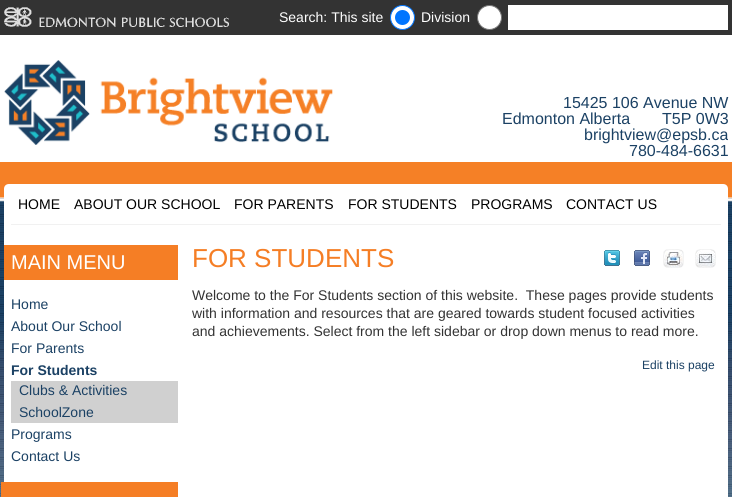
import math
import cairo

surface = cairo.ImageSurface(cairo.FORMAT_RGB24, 732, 497)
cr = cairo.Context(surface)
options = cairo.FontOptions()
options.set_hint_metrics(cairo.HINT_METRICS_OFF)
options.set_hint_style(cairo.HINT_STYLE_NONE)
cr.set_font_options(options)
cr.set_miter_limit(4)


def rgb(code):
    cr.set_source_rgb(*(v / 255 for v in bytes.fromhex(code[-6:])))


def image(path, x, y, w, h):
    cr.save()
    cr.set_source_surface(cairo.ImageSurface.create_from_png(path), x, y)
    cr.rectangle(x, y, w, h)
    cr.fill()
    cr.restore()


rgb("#333333")
cr.paint()
image("img/1.png", 4, 7, 225, 20)
rgb("#ffffff")
cr.arc(402.5, 17.5, 12, 0, 2 * math.pi)
cr.fill_preserve()
rgb("#0075ff")
cr.set_line_width(1)
cr.stroke()
cr.arc(402.5, 17.5, 7.5, 0, 2 * math.pi)
cr.fill()
rgb("#ffffff")
cr.arc(489.5, 17.5, 12, 0, 2 * math.pi)
cr.fill_preserve()
rgb("#767676")
cr.stroke()
rgb("#ffffff")
cr.rectangle(508, 5, 220, 25)
cr.fill()
image("img/7.png", 0, 35, 732, 462)
image("img/2.png", 4, 60, 329, 85)
cr.new_path()
cr.move_to(9, 184)
cr.line_to(723, 184)
cr.curve_to(726, 184, 728, 186, 728, 189)
cr.line_to(728, 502)
cr.line_to(4, 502)
cr.line_to(4, 189)
cr.curve_to(4, 186, 6, 184, 9, 184)
cr.close_path()
cr.fill()
for x, y, w, h, color in [
    (11, 224, 710, 1, "#f1f1f1"),
    (4, 245, 174, 35, "#f57e25"),
    (11, 381, 167, 42, "#d0d0d0"),
    (1, 482, 177, 15, "#f57e25"),
]:
    rgb(color)
    cr.rectangle(x, y, w, h)
    cr.fill()
image("img/3.png", 604, 250, 16, 16)
image("img/4.png", 634, 250, 16, 16)
image("img/5.png", 663, 249, 21, 19)
image("img/6.png", 695, 249, 21, 19)
cr.select_font_face("Liberation Sans")
cr.set_font_size(14)
rgb("#ffffff")
cr.move_to(279, 22)
cr.show_text("Search: This site")
cr.move_to(421, 22)
cr.show_text("Division")
cr.set_font_size(16)
rgb("#1b4164")
for x, y, s in [
    (563, 108, "15425 106 Avenue NW"),
    (502, 124, "Edmonton Alberta  T5P 0W3"),
    (584, 140, "brightview@epsb.ca"),
    (629, 156, "780-484-6631"),
]:
    cr.move_to(x, y)
    cr.show_text(s)
cr.set_font_size(14)
rgb("#000000")
for x, y, s in [
    (18, 209, "HOME"),
    (74, 209, "ABOUT OUR SCHOOL"),
    (234, 209, "FOR PARENTS"),
    (348, 209, "FOR STUDENTS"),
    (471, 209, "PROGRAMS"),
    (566, 209, "CONTACT US"),
]:
    cr.move_to(x, y)
    cr.show_text(s)
cr.set_font_size(20)
rgb("#ffffff")
cr.move_to(11, 269)
cr.show_text("MAIN MENU")
cr.set_font_size(14)
rgb("#1b4164")
for x, y, s in [
    (11, 309, "Home"),
    (11, 331, "About Our School"),
    (11, 353, "For Parents"),
]:
    cr.move_to(x, y)
    cr.show_text(s)
cr.select_font_face("Liberation Sans", cairo.FONT_SLANT_NORMAL, cairo.FONT_WEIGHT_BOLD)
cr.move_to(11, 375)
cr.show_text("For Students")
cr.select_font_face("Liberation Sans")
for x, y, s in [
    (19, 395, "Clubs & Activities"),
    (19, 417, "SchoolZone"),
    (11, 439, "Programs"),
    (11, 461, "Contact Us"),
]:
    cr.move_to(x, y)
    cr.show_text(s)
cr.set_font_size(26)
rgb("#f57e25")
cr.move_to(192, 267)
cr.show_text("FOR STUDENTS")
cr.set_font_size(14)
rgb("#333333")
for x, y, s in [
    (192, 300, "Welcome to the For Students section of this website.  These pages provide students"),
    (192, 318, "with information and resources that are geared towards student focused activities"),
    (192, 336, "and achievements. Select from the left sidebar or drop down menus to read more."),
]:
    cr.move_to(x, y)
    cr.show_text(s)
cr.set_font_size(12)
rgb("#1b4164")
cr.move_to(642, 369)
cr.show_text("Edit this page")
surface.write_to_png("page.png")
